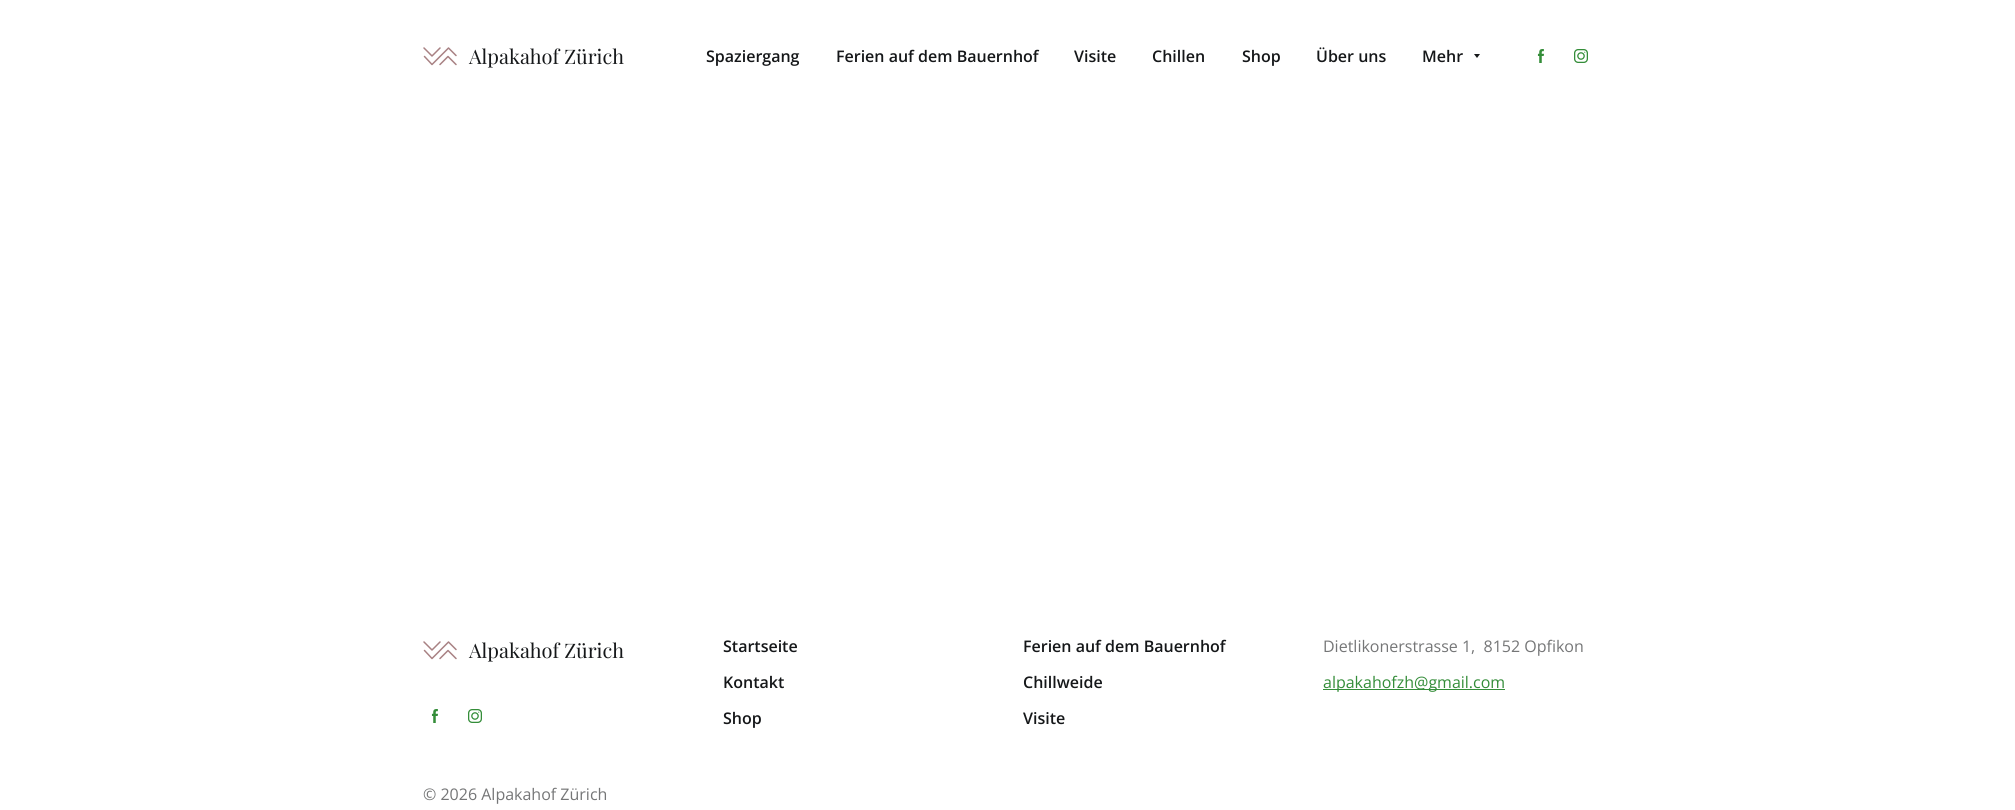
import math
import cairo

surface = cairo.ImageSurface(cairo.FORMAT_RGB24, 2015, 810)
cr = cairo.Context(surface)
options = cairo.FontOptions()
options.set_hint_metrics(cairo.HINT_METRICS_OFF)
options.set_hint_style(cairo.HINT_STYLE_NONE)
cr.set_font_options(options)
cr.set_miter_limit(4)


def rgb(code):
    cr.set_source_rgb(*(v / 255 for v in bytes.fromhex(code[-6:])))


def image(path, x, y, w, h):
    cr.save()
    cr.set_source_surface(cairo.ImageSurface.create_from_png(path), x, y)
    cr.rectangle(x, y, w, h)
    cr.fill()
    cr.restore()


rgb("#ffffff")
cr.paint()
cr.new_path()
cr.move_to(424.5, 56.5)
cr.line_to(432, 64.5)
cr.line_to(448.5, 48)
cr.line_to(456, 55.5)
cr.move_to(424, 48)
cr.line_to(432, 56)
cr.line_to(440, 48)
cr.move_to(440, 64.5)
cr.line_to(448, 56.5)
cr.line_to(456, 64.5)
rgb("#a88183")
cr.set_line_width(1.5)
cr.set_line_cap(cairo.LINE_CAP_ROUND)
cr.set_line_join(cairo.LINE_JOIN_ROUND)
cr.stroke()
rgb("#151719")
cr.new_path()
cr.move_to(1474, 54)
cr.line_to(1480, 54)
cr.line_to(1477, 58)
cr.close_path()
cr.fill()
image("img/1.png", 1537, 49, 7, 14)
image("img/2.png", 1574, 49, 14, 14)
cr.new_path()
cr.move_to(424.5, 650.5)
cr.line_to(432, 658.5)
cr.line_to(448.5, 642)
cr.line_to(456, 649.5)
cr.move_to(424, 642)
cr.line_to(432, 650)
cr.line_to(440, 642)
cr.move_to(440, 658.5)
cr.line_to(448, 650.5)
cr.line_to(456, 658.5)
rgb("#a88183")
cr.stroke()
image("img/1.png", 431, 709, 7, 14)
image("img/2.png", 468, 709, 14, 14)
rgb("#348d39")
cr.rectangle(1323, 689, 182, 1)
cr.fill()
cr.select_font_face("Playfair Display")
cr.set_font_size(20)
rgb("#151719")
cr.move_to(469, 64)
cr.show_text("Alpakahof Zürich")
cr.select_font_face("Open Sans SemiBold")
cr.set_font_size(16)
for x, y, s in [
    (706, 62, "Spaziergang"),
    (836, 62, "Ferien auf dem Bauernhof"),
    (1074, 62, "Visite"),
    (1152, 62, "Chillen"),
    (1242, 62, "Shop"),
    (1316, 62, "Über uns"),
    (1422, 62, "Mehr"),
]:
    cr.move_to(x, y)
    cr.show_text(s)
cr.select_font_face("Playfair Display")
cr.set_font_size(20)
cr.move_to(469, 658)
cr.show_text("Alpakahof Zürich")
cr.select_font_face("Open Sans SemiBold")
cr.set_font_size(16)
for x, y, s in [
    (723, 652, "Startseite"),
    (1023, 652, "Ferien auf dem Bauernhof"),
    (723, 688, "Kontakt"),
    (1023, 688, "Chillweide"),
    (723, 724, "Shop"),
    (1023, 724, "Visite"),
]:
    cr.move_to(x, y)
    cr.show_text(s)
cr.select_font_face("Open Sans")
rgb("#757677")
cr.move_to(1323, 652)
cr.show_text("Dietlikonerstrasse 1,  8152 Opfikon")
rgb("#348d39")
cr.move_to(1323, 688)
cr.show_text("alpakahofzh@gmail.com")
rgb("#757677")
cr.move_to(423, 800)
cr.show_text("© 2026 Alpakahof Zürich")
surface.write_to_png("page.png")
